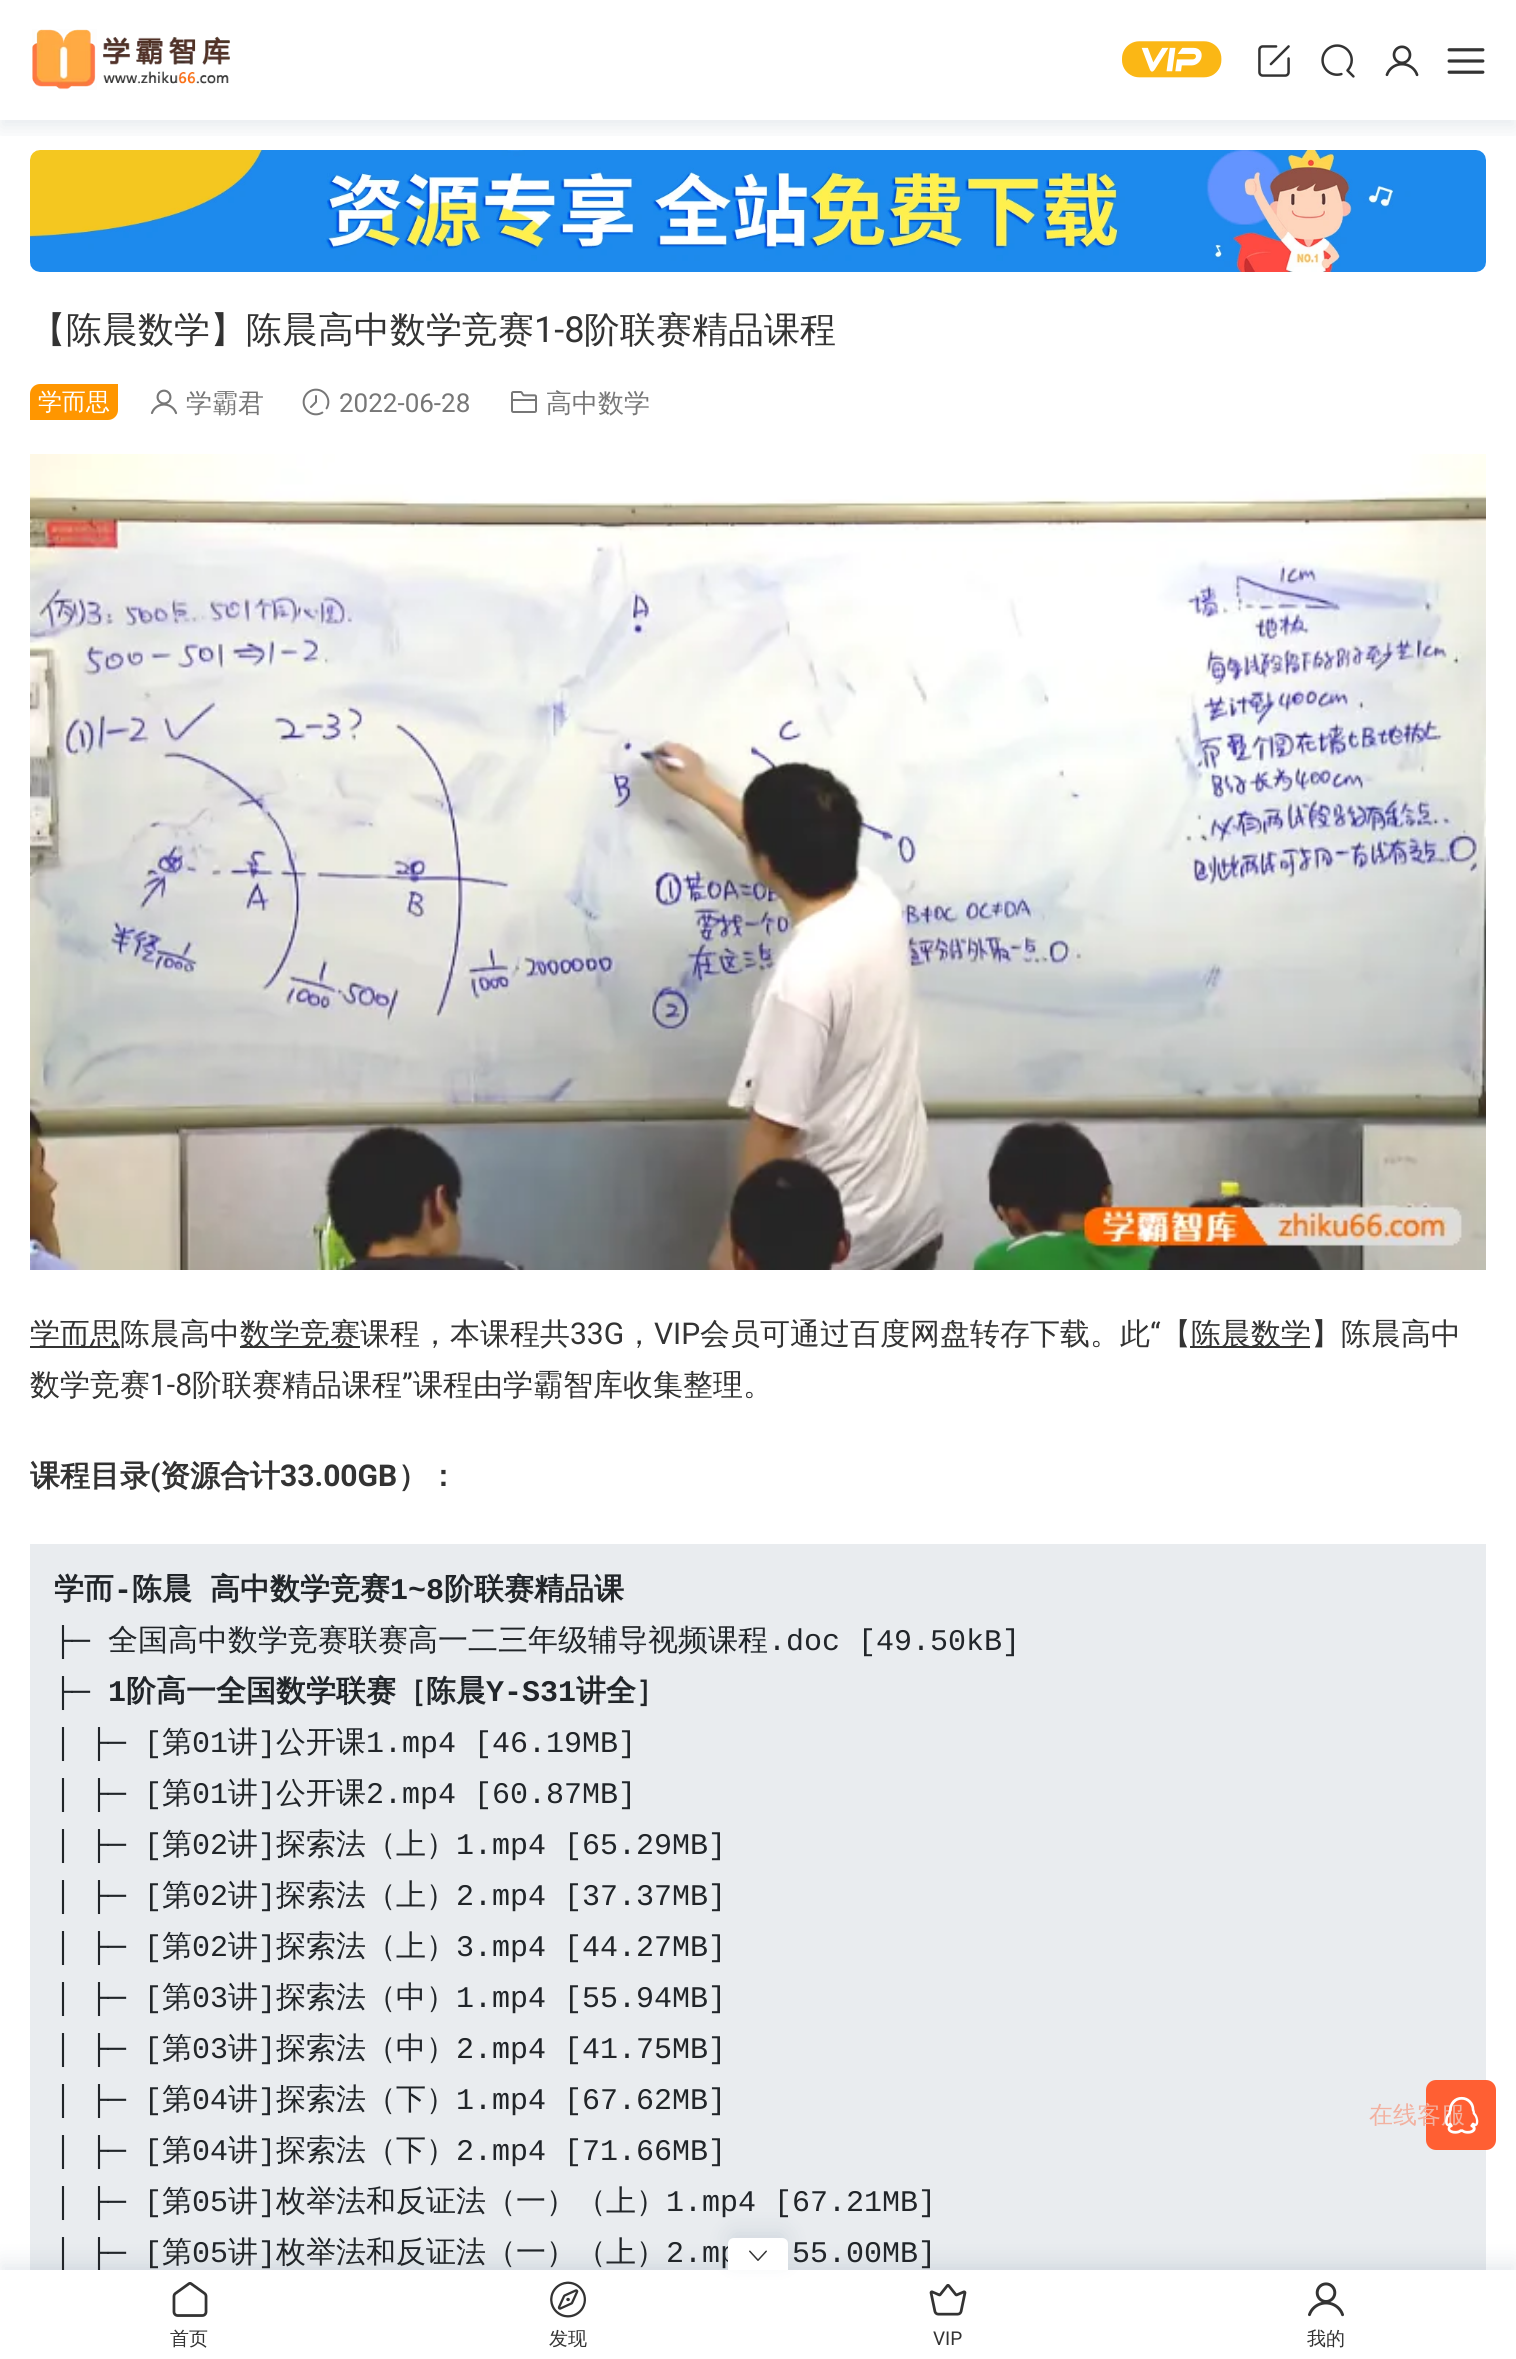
import math
import cairo

surface = cairo.ImageSurface(cairo.FORMAT_RGB24, 1516, 2359)
cr = cairo.Context(surface)
options = cairo.FontOptions()
options.set_hint_metrics(cairo.HINT_METRICS_OFF)
options.set_hint_style(cairo.HINT_STYLE_NONE)
cr.set_font_options(options)
cr.set_miter_limit(4)


def rgb(code):
    cr.set_source_rgb(*(v / 255 for v in bytes.fromhex(code[-6:])))


def tracked(x, y, s, letter, word):
    cr.move_to(x, y)
    for ch in s:
        cr.show_text(ch)
        cr.rel_move_to(letter + word * (ch == ' '), 0)


def rrect(x, y, w, h, r):
    cr.new_sub_path()
    for i, (u, v) in enumerate([(x + w - r, y + h - r), (x + r, y + h - r), (x + r, y + r), (x + w - r, y + r)]):
        cr.arc(u, v, r, i * math.pi / 2, (i + 1) * math.pi / 2)
    cr.close_path()


def soft_shadow(x, y, w, h, r, blur, alpha):
    cr.push_group_with_content(cairo.CONTENT_ALPHA)
    cr.set_operator(cairo.OPERATOR_SOURCE)
    for i in range(15, -16, -2):
        e = blur * i / 6
        if min(w, h) + 2 * e > 0:
            cr.set_source_rgba(0, 0, 0, alpha * math.erfc((i - 1) / 8.5) / 2)
            rrect(x - e, y - e, w + 2 * e, h + 2 * e, max(0, min(r + e + blur * .6, min(w, h) / 2 + e)))
            cr.fill()
    cr.mask(cr.pop_group())


def image(path, x, y, w, h):
    cr.save()
    cr.set_source_surface(cairo.ImageSurface.create_from_png(path), x, y)
    cr.rectangle(x, y, w, h)
    cr.fill()
    cr.restore()


rgb("#ffffff")
cr.paint()
image("img/7.png", 30, 150, 1456, 122)
cr.save()
cr.rectangle(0, 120, 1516, 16)
cr.clip()
rgb("#113a5d")
soft_shadow(0, 8, 1516, 120, 0, 10, 0.1)
cr.restore()
image("img/1.png", 32, 29, 198, 61)
image("img/2.png", 1122, 41, 100, 37)
image("img/3.png", 1258, 45, 32, 32)
image("img/4.png", 1321, 44, 34, 34)
image("img/5.png", 1385, 45, 34, 32)
image("img/6.png", 1447, 48, 38, 26)
rgb("#ff9600")
cr.new_path()
cr.move_to(40, 384)
cr.line_to(118, 384)
cr.line_to(118, 410)
cr.curve_to(118, 415.5, 113.5, 420, 108, 420)
cr.line_to(30, 420)
cr.line_to(30, 394)
cr.curve_to(30, 388.5, 34.5, 384, 40, 384)
cr.close_path()
cr.fill()
image("img/8.png", 150, 389, 28, 26)
image("img/9.png", 302, 388, 28, 28)
image("img/10.png", 511, 391, 26, 22)
image("img/11.png", 30, 454, 1456, 816)
for x, y, w, h, color in [
    (30, 1346, 90, 2, "#333333"),
    (240, 1346, 120, 2, "#333333"),
    (1190, 1346, 120, 2, "#333333"),
    (30, 1544, 1456, 726, "#e9ecef"),
]:
    rgb(color)
    cr.rectangle(x, y, w, h)
    cr.fill()
rgb("#ff5f33")
rrect(1426, 2080, 70, 70, 10)
cr.fill()
rgb("#113a5d")
soft_shadow(0, 2262, 1516, 90, 0, 10, 0.1)
cr.select_font_face("WenQuanYi Zen Hei Medium")
cr.set_font_size(36)
rgb("#333333")
cr.move_to(30, 342)
cr.show_text("【陈晨数学】陈晨高中数学竞赛")
cr.select_font_face("Roboto")
cr.move_to(534, 342)
cr.show_text("1-8")
cr.select_font_face("WenQuanYi Zen Hei Medium")
cr.move_to(584, 342)
cr.show_text("阶联赛精品课程")
cr.set_font_size(24)
rgb("#ffffff")
cr.move_to(38, 410)
cr.show_text("学而思")
cr.set_font_size(26)
rgb("#777777")
cr.move_to(186, 412)
cr.show_text("学霸君")
cr.select_font_face("Roboto")
cr.move_to(339, 412)
cr.show_text("2022-06-28")
cr.select_font_face("WenQuanYi Zen Hei Medium")
cr.move_to(546, 412)
cr.show_text("高中数学")
cr.set_font_size(30)
rgb("#333333")
cr.move_to(30, 1344)
cr.show_text("学而思陈晨高中")
cr.move_to(240, 1344)
cr.show_text("数学竞赛课程，本课程共")
cr.select_font_face("Roboto")
cr.move_to(570, 1344)
cr.show_text("33G")
cr.select_font_face("WenQuanYi Zen Hei Medium")
cr.move_to(624, 1344)
cr.show_text("，")
cr.select_font_face("Roboto")
cr.move_to(654, 1344)
cr.show_text("VIP")
cr.select_font_face("WenQuanYi Zen Hei Medium")
cr.move_to(700, 1344)
cr.show_text("会员可通过百度网盘转存下载。此")
cr.select_font_face("Roboto")
cr.move_to(1150, 1344)
cr.show_text("“")
cr.select_font_face("WenQuanYi Zen Hei Medium")
for x, y, s in [
    (1161, 1344, "【"),
    (1191, 1344, "陈晨数学】陈晨高中"),
    (30, 1395, "数学竞赛"),
]:
    cr.move_to(x, y)
    cr.show_text(s)
cr.select_font_face("Roboto")
cr.move_to(150, 1395)
cr.show_text("1-8")
cr.select_font_face("WenQuanYi Zen Hei Medium")
cr.move_to(192, 1395)
cr.show_text("阶联赛精品课程")
cr.select_font_face("Roboto")
cr.move_to(402, 1395)
cr.show_text("”")
cr.select_font_face("WenQuanYi Zen Hei Medium")
cr.move_to(413, 1395)
cr.show_text("课程由学霸智库收集整理。")
cr.select_font_face("WenQuanYi Zen Hei", cairo.FONT_SLANT_NORMAL, cairo.FONT_WEIGHT_BOLD)
cr.move_to(30, 1486)
cr.show_text("课程目录")
cr.select_font_face("Roboto", cairo.FONT_SLANT_NORMAL, cairo.FONT_WEIGHT_BOLD)
cr.move_to(150, 1486)
cr.show_text("(")
cr.select_font_face("WenQuanYi Zen Hei", cairo.FONT_SLANT_NORMAL, cairo.FONT_WEIGHT_BOLD)
cr.move_to(160, 1486)
cr.show_text("资源合计")
cr.select_font_face("Roboto", cairo.FONT_SLANT_NORMAL, cairo.FONT_WEIGHT_BOLD)
cr.move_to(280, 1486)
cr.show_text("33.00GB")
cr.select_font_face("WenQuanYi Zen Hei", cairo.FONT_SLANT_NORMAL, cairo.FONT_WEIGHT_BOLD)
cr.move_to(398, 1486)
cr.show_text("）：")
rgb("#212529")
cr.move_to(54, 1599)
cr.show_text("学而")
cr.select_font_face("Liberation Mono", cairo.FONT_SLANT_NORMAL, cairo.FONT_WEIGHT_BOLD)
cr.move_to(114, 1599)
cr.show_text("-")
cr.select_font_face("WenQuanYi Zen Hei", cairo.FONT_SLANT_NORMAL, cairo.FONT_WEIGHT_BOLD)
tracked(132, 1599, "陈晨 高中数学竞赛", 0, 9)
cr.select_font_face("Liberation Mono", cairo.FONT_SLANT_NORMAL, cairo.FONT_WEIGHT_BOLD)
cr.move_to(390, 1599)
cr.show_text("1~8")
cr.select_font_face("WenQuanYi Zen Hei", cairo.FONT_SLANT_NORMAL, cairo.FONT_WEIGHT_BOLD)
cr.move_to(444, 1599)
cr.show_text("阶联赛精品课")
cr.select_font_face("Liberation Mono")
cr.move_to(54, 1650)
cr.show_text("├─")
cr.select_font_face("WenQuanYi Zen Hei Medium")
cr.move_to(108, 1650)
cr.show_text("全国高中数学竞赛联赛高一二三年级辅导视频课程")
cr.select_font_face("Liberation Mono")
cr.move_to(768, 1650)
cr.show_text(".doc [49.50kB]")
cr.move_to(54, 1701)
cr.show_text("├─")
cr.select_font_face("Liberation Mono", cairo.FONT_SLANT_NORMAL, cairo.FONT_WEIGHT_BOLD)
cr.move_to(108, 1701)
cr.show_text("1")
cr.select_font_face("WenQuanYi Zen Hei", cairo.FONT_SLANT_NORMAL, cairo.FONT_WEIGHT_BOLD)
cr.move_to(126, 1701)
cr.show_text("阶高一全国数学联赛［陈晨")
cr.select_font_face("Liberation Mono", cairo.FONT_SLANT_NORMAL, cairo.FONT_WEIGHT_BOLD)
cr.move_to(486, 1701)
cr.show_text("Y-S31")
cr.select_font_face("WenQuanYi Zen Hei", cairo.FONT_SLANT_NORMAL, cairo.FONT_WEIGHT_BOLD)
cr.move_to(576, 1701)
cr.show_text("讲全］")
cr.select_font_face("Liberation Mono")
cr.move_to(54, 1752)
cr.show_text("│ ├─ [")
cr.select_font_face("WenQuanYi Zen Hei Medium")
cr.move_to(162, 1752)
cr.show_text("第")
cr.select_font_face("Liberation Mono")
cr.move_to(192, 1752)
cr.show_text("01")
cr.select_font_face("WenQuanYi Zen Hei Medium")
cr.move_to(228, 1752)
cr.show_text("讲")
cr.select_font_face("Liberation Mono")
cr.move_to(258, 1752)
cr.show_text("]")
cr.select_font_face("WenQuanYi Zen Hei Medium")
cr.move_to(276, 1752)
cr.show_text("公开课")
cr.select_font_face("Liberation Mono")
cr.move_to(366, 1752)
cr.show_text("1.mp4 [46.19MB]")
cr.move_to(54, 1803)
cr.show_text("│ ├─ [")
cr.select_font_face("WenQuanYi Zen Hei Medium")
cr.move_to(162, 1803)
cr.show_text("第")
cr.select_font_face("Liberation Mono")
cr.move_to(192, 1803)
cr.show_text("01")
cr.select_font_face("WenQuanYi Zen Hei Medium")
cr.move_to(228, 1803)
cr.show_text("讲")
cr.select_font_face("Liberation Mono")
cr.move_to(258, 1803)
cr.show_text("]")
cr.select_font_face("WenQuanYi Zen Hei Medium")
cr.move_to(276, 1803)
cr.show_text("公开课")
cr.select_font_face("Liberation Mono")
cr.move_to(366, 1803)
cr.show_text("2.mp4 [60.87MB]")
cr.move_to(54, 1854)
cr.show_text("│ ├─ [")
cr.select_font_face("WenQuanYi Zen Hei Medium")
cr.move_to(162, 1854)
cr.show_text("第")
cr.select_font_face("Liberation Mono")
cr.move_to(192, 1854)
cr.show_text("02")
cr.select_font_face("WenQuanYi Zen Hei Medium")
cr.move_to(228, 1854)
cr.show_text("讲")
cr.select_font_face("Liberation Mono")
cr.move_to(258, 1854)
cr.show_text("]")
cr.select_font_face("WenQuanYi Zen Hei Medium")
cr.move_to(276, 1854)
cr.show_text("探索法（上）")
cr.select_font_face("Liberation Mono")
cr.move_to(456, 1854)
cr.show_text("1.mp4 [65.29MB]")
cr.move_to(54, 1905)
cr.show_text("│ ├─ [")
cr.select_font_face("WenQuanYi Zen Hei Medium")
cr.move_to(162, 1905)
cr.show_text("第")
cr.select_font_face("Liberation Mono")
cr.move_to(192, 1905)
cr.show_text("02")
cr.select_font_face("WenQuanYi Zen Hei Medium")
cr.move_to(228, 1905)
cr.show_text("讲")
cr.select_font_face("Liberation Mono")
cr.move_to(258, 1905)
cr.show_text("]")
cr.select_font_face("WenQuanYi Zen Hei Medium")
cr.move_to(276, 1905)
cr.show_text("探索法（上）")
cr.select_font_face("Liberation Mono")
cr.move_to(456, 1905)
cr.show_text("2.mp4 [37.37MB]")
cr.move_to(54, 1956)
cr.show_text("│ ├─ [")
cr.select_font_face("WenQuanYi Zen Hei Medium")
cr.move_to(162, 1956)
cr.show_text("第")
cr.select_font_face("Liberation Mono")
cr.move_to(192, 1956)
cr.show_text("02")
cr.select_font_face("WenQuanYi Zen Hei Medium")
cr.move_to(228, 1956)
cr.show_text("讲")
cr.select_font_face("Liberation Mono")
cr.move_to(258, 1956)
cr.show_text("]")
cr.select_font_face("WenQuanYi Zen Hei Medium")
cr.move_to(276, 1956)
cr.show_text("探索法（上）")
cr.select_font_face("Liberation Mono")
cr.move_to(456, 1956)
cr.show_text("3.mp4 [44.27MB]")
cr.move_to(54, 2007)
cr.show_text("│ ├─ [")
cr.select_font_face("WenQuanYi Zen Hei Medium")
cr.move_to(162, 2007)
cr.show_text("第")
cr.select_font_face("Liberation Mono")
cr.move_to(192, 2007)
cr.show_text("03")
cr.select_font_face("WenQuanYi Zen Hei Medium")
cr.move_to(228, 2007)
cr.show_text("讲")
cr.select_font_face("Liberation Mono")
cr.move_to(258, 2007)
cr.show_text("]")
cr.select_font_face("WenQuanYi Zen Hei Medium")
cr.move_to(276, 2007)
cr.show_text("探索法（中）")
cr.select_font_face("Liberation Mono")
cr.move_to(456, 2007)
cr.show_text("1.mp4 [55.94MB]")
cr.move_to(54, 2058)
cr.show_text("│ ├─ [")
cr.select_font_face("WenQuanYi Zen Hei Medium")
cr.move_to(162, 2058)
cr.show_text("第")
cr.select_font_face("Liberation Mono")
cr.move_to(192, 2058)
cr.show_text("03")
cr.select_font_face("WenQuanYi Zen Hei Medium")
cr.move_to(228, 2058)
cr.show_text("讲")
cr.select_font_face("Liberation Mono")
cr.move_to(258, 2058)
cr.show_text("]")
cr.select_font_face("WenQuanYi Zen Hei Medium")
cr.move_to(276, 2058)
cr.show_text("探索法（中）")
cr.select_font_face("Liberation Mono")
cr.move_to(456, 2058)
cr.show_text("2.mp4 [41.75MB]")
cr.move_to(54, 2109)
cr.show_text("│ ├─ [")
cr.select_font_face("WenQuanYi Zen Hei Medium")
cr.move_to(162, 2109)
cr.show_text("第")
cr.select_font_face("Liberation Mono")
cr.move_to(192, 2109)
cr.show_text("04")
cr.select_font_face("WenQuanYi Zen Hei Medium")
cr.move_to(228, 2109)
cr.show_text("讲")
cr.select_font_face("Liberation Mono")
cr.move_to(258, 2109)
cr.show_text("]")
cr.select_font_face("WenQuanYi Zen Hei Medium")
cr.move_to(276, 2109)
cr.show_text("探索法（下）")
cr.select_font_face("Liberation Mono")
cr.move_to(456, 2109)
cr.show_text("1.mp4 [67.62MB]")
cr.move_to(54, 2160)
cr.show_text("│ ├─ [")
cr.select_font_face("WenQuanYi Zen Hei Medium")
cr.move_to(162, 2160)
cr.show_text("第")
cr.select_font_face("Liberation Mono")
cr.move_to(192, 2160)
cr.show_text("04")
cr.select_font_face("WenQuanYi Zen Hei Medium")
cr.move_to(228, 2160)
cr.show_text("讲")
cr.select_font_face("Liberation Mono")
cr.move_to(258, 2160)
cr.show_text("]")
cr.select_font_face("WenQuanYi Zen Hei Medium")
cr.move_to(276, 2160)
cr.show_text("探索法（下）")
cr.select_font_face("Liberation Mono")
cr.move_to(456, 2160)
cr.show_text("2.mp4 [71.66MB]")
cr.move_to(54, 2211)
cr.show_text("│ ├─ [")
cr.select_font_face("WenQuanYi Zen Hei Medium")
cr.move_to(162, 2211)
cr.show_text("第")
cr.select_font_face("Liberation Mono")
cr.move_to(192, 2211)
cr.show_text("05")
cr.select_font_face("WenQuanYi Zen Hei Medium")
cr.move_to(228, 2211)
cr.show_text("讲")
cr.select_font_face("Liberation Mono")
cr.move_to(258, 2211)
cr.show_text("]")
cr.select_font_face("WenQuanYi Zen Hei Medium")
cr.move_to(276, 2211)
cr.show_text("枚举法和反证法（一）（上）")
cr.select_font_face("Liberation Mono")
cr.move_to(666, 2211)
cr.show_text("1.mp4 [67.21MB]")
cr.move_to(54, 2262)
cr.show_text("│ ├─ [")
cr.select_font_face("WenQuanYi Zen Hei Medium")
cr.move_to(162, 2262)
cr.show_text("第")
cr.select_font_face("Liberation Mono")
cr.move_to(192, 2262)
cr.show_text("05")
cr.select_font_face("WenQuanYi Zen Hei Medium")
cr.move_to(228, 2262)
cr.show_text("讲")
cr.select_font_face("Liberation Mono")
cr.move_to(258, 2262)
cr.show_text("]")
cr.select_font_face("WenQuanYi Zen Hei Medium")
cr.move_to(276, 2262)
cr.show_text("枚举法和反证法（一）（上）")
cr.select_font_face("Liberation Mono")
cr.move_to(666, 2262)
cr.show_text("2.mp")
cr.move_to(792, 2262)
cr.show_text("55.00MB]")
cr.select_font_face("WenQuanYi Zen Hei Medium")
cr.set_font_size(24)
rgb("#f2b1a0")
cr.move_to(1369, 2123)
cr.show_text("在线客服")
image("img/12.png", 1445, 2096, 34, 38)
rgb("#ffffff")
cr.rectangle(0, 2270, 1516, 89)
cr.fill()
rgb("#113a5d")
soft_shadow(728, 2230, 60, 32, 6, 10, 0.1)
rgb("#ffffff")
cr.new_path()
cr.move_to(734, 2238)
cr.line_to(782, 2238)
cr.curve_to(785.5, 2238, 788, 2240.5, 788, 2244)
cr.line_to(788, 2270)
cr.line_to(728, 2270)
cr.line_to(728, 2244)
cr.curve_to(728, 2240.5, 730.5, 2238, 734, 2238)
cr.close_path()
cr.fill()
image("img/13.png", 749, 2250, 18, 11)
image("img/14.png", 172, 2282, 36, 35)
cr.set_font_size(19)
rgb("#333333")
cr.move_to(170, 2345)
cr.show_text("首页")
image("img/15.png", 550, 2281, 36, 37)
cr.move_to(549, 2345)
cr.show_text("发现")
image("img/16.png", 929, 2284, 38, 32)
cr.select_font_face("Roboto")
cr.move_to(933, 2345)
cr.show_text("VIP")
image("img/17.png", 1308, 2282, 36, 35)
cr.select_font_face("WenQuanYi Zen Hei Medium")
cr.move_to(1307, 2345)
cr.show_text("我的")
surface.write_to_png("page.png")
